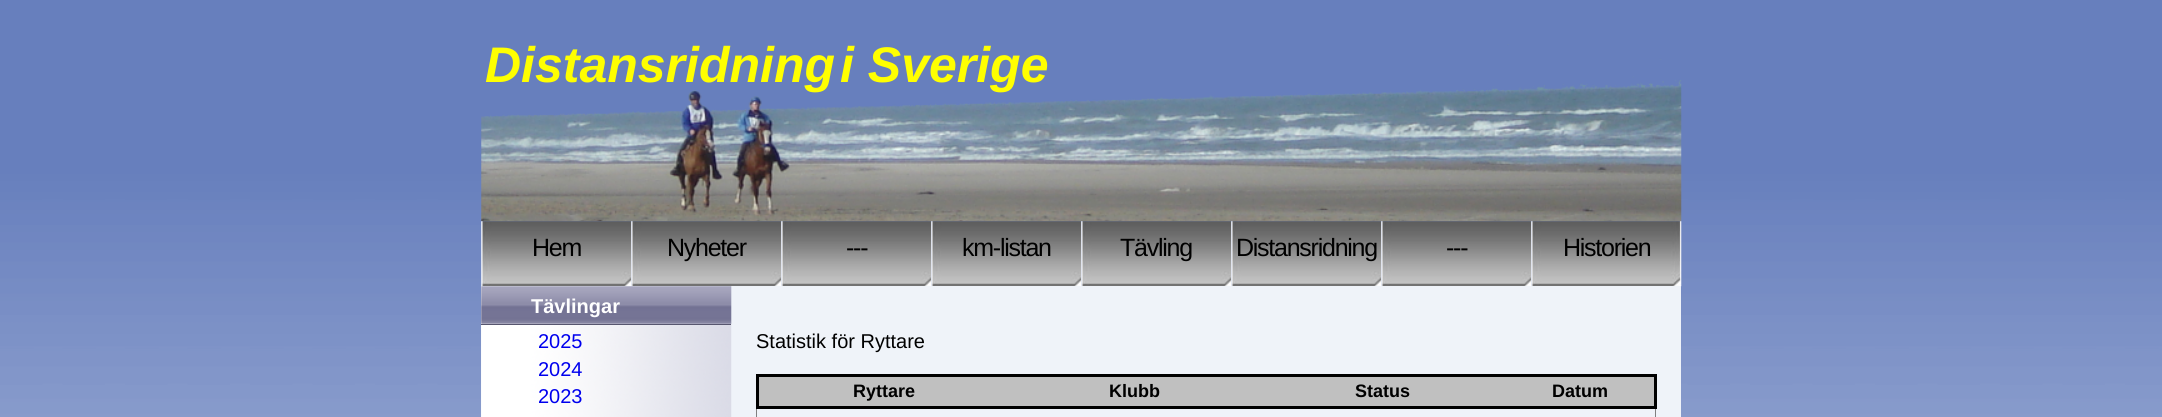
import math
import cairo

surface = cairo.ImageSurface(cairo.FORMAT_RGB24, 2162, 417)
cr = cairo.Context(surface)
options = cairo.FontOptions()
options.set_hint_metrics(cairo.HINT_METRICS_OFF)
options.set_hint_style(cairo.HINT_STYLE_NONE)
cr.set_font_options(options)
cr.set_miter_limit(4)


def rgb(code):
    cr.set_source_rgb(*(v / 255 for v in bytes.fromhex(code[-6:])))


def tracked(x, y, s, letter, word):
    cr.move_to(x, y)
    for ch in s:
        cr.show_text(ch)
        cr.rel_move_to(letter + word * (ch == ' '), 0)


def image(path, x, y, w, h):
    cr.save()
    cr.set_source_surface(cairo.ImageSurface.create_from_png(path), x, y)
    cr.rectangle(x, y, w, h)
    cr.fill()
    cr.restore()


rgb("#ffffff")
cr.paint()
image("img/1.png", 0, 0, 2162, 417)
image("img/2.png", 481, 44, 1201, 178)
image("img/3.png", 481, 221, 151, 65)
image("img/4.png", 631, 221, 151, 65)
image("img/5.png", 781, 221, 151, 65)
image("img/6.png", 931, 221, 151, 65)
image("img/7.png", 1081, 221, 151, 65)
image("img/8.png", 1231, 221, 151, 65)
image("img/9.png", 1381, 221, 151, 65)
image("img/10.png", 1531, 221, 151, 66)
rgb("#eff3f9")
cr.rectangle(481, 286, 1200, 131)
cr.fill()
image("img/11.png", 481, 286, 251, 131)
image("img/12.png", 481, 286, 251, 38)
for x, y, w, h, color in [
    (481, 324, 250, 1, "#57566f"),
    (1655, 409, 1, 8, "#808080"),
    (756, 409, 1, 8, "#808080"),
    (759, 377, 895, 29, "#c0c0c0"),
    (756, 374, 900, 3, "#000000"),
    (1654, 374, 3, 35, "#000000"),
    (756, 406, 900, 3, "#000000"),
    (756, 374, 3, 35, "#000000"),
]:
    rgb(color)
    cr.rectangle(x, y, w, h)
    cr.fill()
cr.select_font_face("Liberation Sans", cairo.FONT_SLANT_ITALIC, cairo.FONT_WEIGHT_BOLD)
cr.set_font_size(50)
rgb("#ffff00")
cr.move_to(485, 82)
cr.show_text("Distansridning")
cr.move_to(840, 82)
cr.show_text("i Sverige")
cr.select_font_face("Liberation Sans")
cr.set_font_size(25)
rgb("#000000")
for x, y, s in [
    (532, 256, "Hem"),
    (667, 256, "Nyheter"),
    (846, 256, "---"),
    (962, 256, "km-listan"),
    (1120, 256, "Tävling"),
    (1236, 256, "Distansridning"),
    (1446, 256, "---"),
    (1563, 256, "Historien"),
]:
    tracked(x, y, s, -1.25, 0)
cr.select_font_face("Liberation Sans", cairo.FONT_SLANT_NORMAL, cairo.FONT_WEIGHT_BOLD)
cr.set_font_size(20)
rgb("#ffffff")
cr.move_to(531, 313)
cr.show_text("Tävlingar")
cr.select_font_face("Liberation Sans")
rgb("#0000ee")
for x, y, s in [
    (538, 348, "2025"),
    (538, 376, "2024"),
    (538, 403, "2023"),
]:
    cr.move_to(x, y)
    cr.show_text(s)
rgb("#000000")
cr.move_to(756, 348)
cr.show_text("Statistik för Ryttare")
cr.select_font_face("Liberation Sans", cairo.FONT_SLANT_NORMAL, cairo.FONT_WEIGHT_BOLD)
cr.set_font_size(18)
for x, y, s in [
    (853, 397, "Ryttare"),
    (1109, 397, "Klubb"),
    (1355, 397, "Status"),
    (1552, 397, "Datum"),
]:
    cr.move_to(x, y)
    cr.show_text(s)
surface.write_to_png("page.png")
